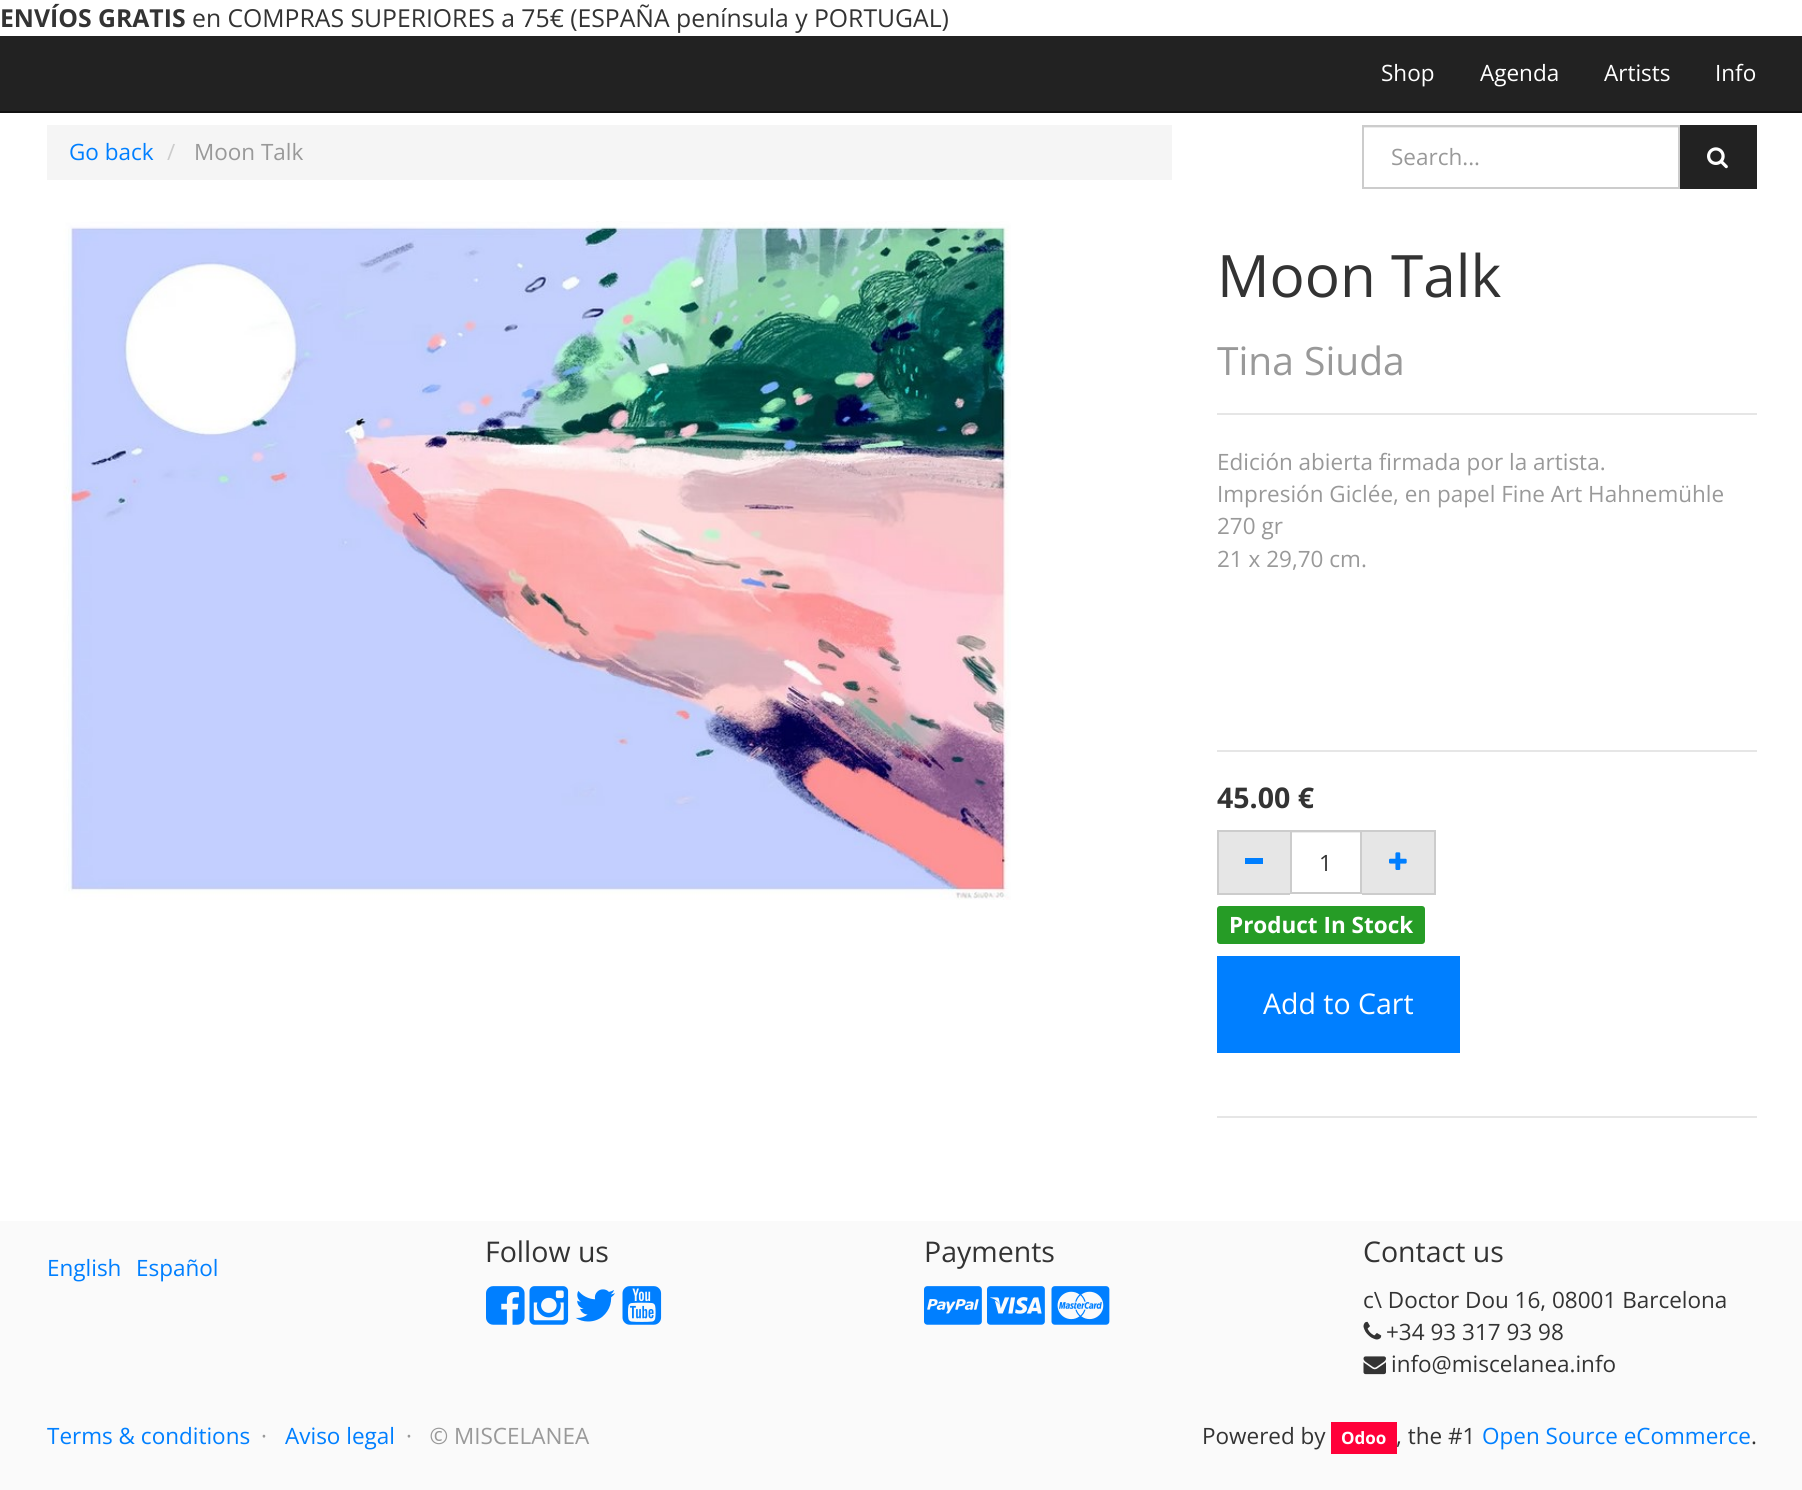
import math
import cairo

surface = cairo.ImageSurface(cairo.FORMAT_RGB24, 1802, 1490)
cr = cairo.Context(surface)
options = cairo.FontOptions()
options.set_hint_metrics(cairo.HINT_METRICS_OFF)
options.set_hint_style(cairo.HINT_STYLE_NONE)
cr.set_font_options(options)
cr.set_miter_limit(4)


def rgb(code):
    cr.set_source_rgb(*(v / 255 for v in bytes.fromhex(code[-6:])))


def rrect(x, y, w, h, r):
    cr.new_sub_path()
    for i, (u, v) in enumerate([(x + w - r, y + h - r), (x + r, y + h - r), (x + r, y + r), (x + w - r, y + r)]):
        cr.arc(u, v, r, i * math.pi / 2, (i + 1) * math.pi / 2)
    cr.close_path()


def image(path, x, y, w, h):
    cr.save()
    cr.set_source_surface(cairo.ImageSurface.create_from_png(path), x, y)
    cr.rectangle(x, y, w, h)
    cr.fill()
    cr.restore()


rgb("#ffffff")
cr.paint()
for x, y, w, h, color in [
    (0, 36, 1802, 75, "#222222"),
    (0, 111, 1802, 2, "#121212"),
    (47, 125, 1125, 55, "#f5f5f5"),
    (1364, 127, 315, 1, "#ececec"),
]:
    rgb(color)
    cr.rectangle(x, y, w, h)
    cr.fill()
cr.rectangle(1363, 126, 316, 62)
rgb("#cccccc")
cr.stroke()
rgb("#222222")
cr.rectangle(1680, 125, 77, 64)
cr.fill()
image("img/1.png", 1707, 147, 21, 22)
image("img/2.png", 63, 221, 948, 679)
for x, y, w, h, color in [
    (1217, 413, 540, 2, "#e6e6e6"),
    (1217, 750, 540, 2, "#e6e6e6"),
    (1219, 832, 71, 61, "#e6e6e6"),
    (1217, 830, 73, 2, "#cccccc"),
    (1217, 893, 73, 2, "#cccccc"),
    (1217, 830, 2, 64, "#cccccc"),
    (1245, 858, 18, 6, "#007fff"),
    (1292, 832, 69, 1, "#ececec"),
]:
    rgb(color)
    cr.rectangle(x, y, w, h)
    cr.fill()
cr.rectangle(1291, 831, 70, 62)
rgb("#cccccc")
cr.stroke()
for x, y, w, h, color in [
    (1362, 832, 72, 61, "#e6e6e6"),
    (1362, 830, 74, 2, "#cccccc"),
    (1434, 830, 2, 64, "#cccccc"),
    (1362, 893, 74, 2, "#cccccc"),
]:
    rgb(color)
    cr.rectangle(x, y, w, h)
    cr.fill()
image("img/3.png", 1389, 852, 18, 18)
rgb("#269c26")
rrect(1217, 906, 208, 38, 3)
cr.fill()
for x, y, w, h, color in [
    (1217, 956, 243, 97, "#007fff"),
    (1217, 1116, 540, 2, "#e6e6e6"),
    (0, 1221, 1802, 269, "#fafafa"),
]:
    rgb(color)
    cr.rectangle(x, y, w, h)
    cr.fill()
image("img/4.png", 486, 1286, 39, 39)
image("img/5.png", 529, 1286, 40, 39)
image("img/6.png", 575, 1289, 40, 33)
image("img/7.png", 622, 1286, 40, 39)
image("img/8.png", 924, 1286, 58, 39)
image("img/9.png", 987, 1286, 58, 39)
image("img/10.png", 1051, 1286, 59, 39)
image("img/11.png", 1363, 1321, 19, 19)
image("img/12.png", 1363, 1356, 23, 19)
rgb("#ff0039")
cr.rectangle(1331, 1422, 66, 32)
cr.fill()
cr.select_font_face("Open Sans", cairo.FONT_SLANT_NORMAL, cairo.FONT_WEIGHT_BOLD)
cr.set_font_size(24.75)
rgb("#333333")
cr.move_to(0, 27)
cr.show_text("ENVÍOS GRATIS")
cr.select_font_face("Open Sans")
cr.move_to(192, 27)
cr.show_text("en COMPRAS SUPERIORES a 75€ (ESPAÑA península y PORTUGAL)")
cr.set_font_size(22.5)
rgb("#ffffff")
for x, y, s in [
    (1381, 81, "Shop"),
    (1480, 81, "Agenda"),
    (1604, 81, "Artists"),
    (1715, 81, "Info"),
]:
    cr.move_to(x, y)
    cr.show_text(s)
rgb("#007fff")
cr.move_to(69, 160)
cr.show_text("Go back")
rgb("#cccccc")
cr.move_to(167, 160)
cr.show_text("/")
rgb("#999999")
cr.move_to(194, 160)
cr.show_text("Moon Talk")
cr.move_to(1391, 165)
cr.show_text("Search...")
cr.set_font_size(58.5)
rgb("#333333")
cr.move_to(1217, 297)
cr.show_text("Moon Talk")
cr.set_font_size(39)
rgb("#999999")
cr.move_to(1217, 375)
cr.show_text("Tina Siuda")
cr.set_font_size(22.5)
for x, y, s in [
    (1217, 470, "Edición abierta firmada por la artista."),
    (1217, 502, "Impresión Giclée, en papel Fine Art Hahnemühle"),
    (1217, 534, "270 gr"),
    (1217, 567, "21 x 29,70 cm."),
]:
    cr.move_to(x, y)
    cr.show_text(s)
cr.select_font_face("Open Sans", cairo.FONT_SLANT_NORMAL, cairo.FONT_WEIGHT_BOLD)
cr.set_font_size(28.5)
rgb("#333333")
cr.move_to(1217, 808)
cr.show_text("45.00 €")
cr.select_font_face("Open Sans")
cr.set_font_size(22.5)
cr.move_to(1319, 871)
cr.show_text("1")
cr.select_font_face("Open Sans", cairo.FONT_SLANT_NORMAL, cairo.FONT_WEIGHT_BOLD)
rgb("#ffffff")
cr.move_to(1229, 933)
cr.show_text("Product In Stock")
cr.select_font_face("Open Sans")
cr.set_font_size(28.5)
cr.move_to(1263, 1014)
cr.show_text("Add to Cart")
cr.set_font_size(22.5)
rgb("#007fff")
cr.move_to(47, 1276)
cr.show_text("English")
cr.move_to(136, 1276)
cr.show_text("Español")
cr.set_font_size(28.5)
rgb("#333333")
for x, y, s in [
    (485, 1262, "Follow us"),
    (924, 1262, "Payments"),
    (1363, 1262, "Contact us"),
]:
    cr.move_to(x, y)
    cr.show_text(s)
cr.set_font_size(22.5)
for x, y, s in [
    (1363, 1308, "c\\ Doctor Dou 16, 08001 Barcelona"),
    (1386, 1340, "+34 93 317 93 98"),
    (1391, 1372, "info@miscelanea.info"),
]:
    cr.move_to(x, y)
    cr.show_text(s)
rgb("#007fff")
cr.move_to(47, 1444)
cr.show_text("Terms & conditions")
rgb("#999999")
cr.move_to(261, 1444)
cr.show_text("·")
rgb("#007fff")
cr.move_to(285, 1444)
cr.show_text("Aviso legal")
rgb("#999999")
cr.move_to(406, 1444)
cr.show_text("·   © MISCELANEA")
rgb("#333333")
cr.move_to(1202, 1444)
cr.show_text("Powered by")
cr.select_font_face("Open Sans", cairo.FONT_SLANT_NORMAL, cairo.FONT_WEIGHT_BOLD)
cr.set_font_size(17)
rgb("#ffffff")
cr.move_to(1341, 1444)
cr.show_text("Odoo")
cr.select_font_face("Open Sans")
cr.set_font_size(22.5)
rgb("#333333")
cr.move_to(1396, 1444)
cr.show_text(", the #1")
rgb("#007fff")
cr.move_to(1482, 1444)
cr.show_text("Open Source eCommerce")
rgb("#333333")
cr.move_to(1751, 1444)
cr.show_text(".")
surface.write_to_png("page.png")
